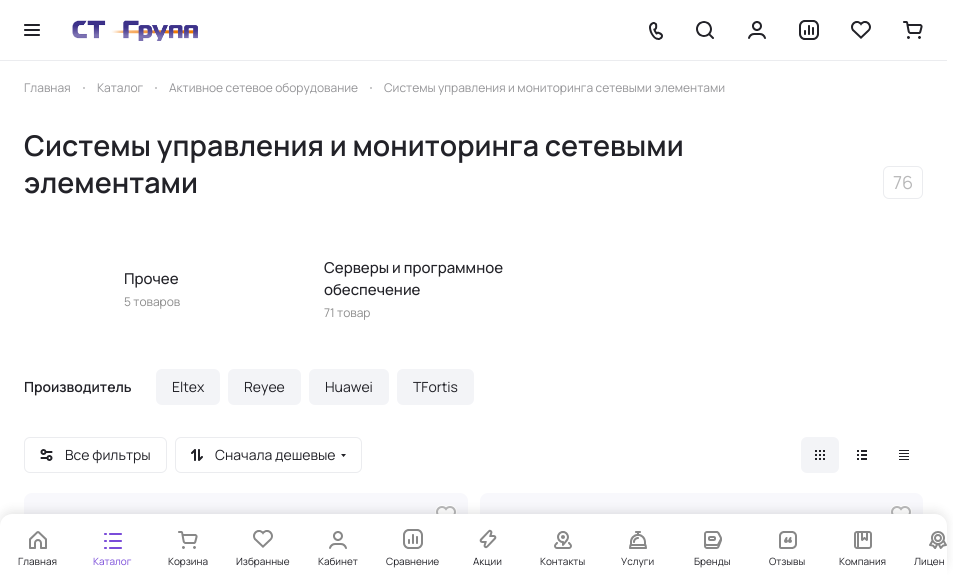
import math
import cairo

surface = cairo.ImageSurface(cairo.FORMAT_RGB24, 953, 575)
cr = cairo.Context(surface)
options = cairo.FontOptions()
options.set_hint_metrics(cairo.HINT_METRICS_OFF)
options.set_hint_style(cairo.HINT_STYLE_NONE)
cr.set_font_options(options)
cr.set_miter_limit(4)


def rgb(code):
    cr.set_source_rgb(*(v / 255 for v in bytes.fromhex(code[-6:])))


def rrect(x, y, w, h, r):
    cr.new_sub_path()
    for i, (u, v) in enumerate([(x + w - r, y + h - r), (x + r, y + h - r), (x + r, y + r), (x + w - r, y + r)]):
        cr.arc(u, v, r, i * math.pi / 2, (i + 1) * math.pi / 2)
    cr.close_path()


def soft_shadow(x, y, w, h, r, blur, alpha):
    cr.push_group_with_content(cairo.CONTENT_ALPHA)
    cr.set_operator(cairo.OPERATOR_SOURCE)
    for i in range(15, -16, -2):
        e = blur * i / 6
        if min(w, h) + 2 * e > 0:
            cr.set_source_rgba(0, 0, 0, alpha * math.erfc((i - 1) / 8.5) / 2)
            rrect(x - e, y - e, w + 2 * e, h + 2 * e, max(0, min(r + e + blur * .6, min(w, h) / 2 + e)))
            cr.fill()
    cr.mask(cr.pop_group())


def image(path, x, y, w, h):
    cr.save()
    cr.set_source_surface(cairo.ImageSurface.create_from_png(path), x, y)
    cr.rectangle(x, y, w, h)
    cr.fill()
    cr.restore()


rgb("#ffffff")
cr.paint()
rgb("#ebecef")
cr.rectangle(0, 60, 947, 1)
cr.fill()
image("img/1.png", 24, 24, 16, 12)
image("img/2.png", 72, 20, 126, 21)
image("img/3.png", 649, 22, 14, 18)
image("img/4.png", 696, 21, 18, 18)
image("img/5.png", 748, 21, 18, 18)
image("img/6.png", 799, 20, 20, 20)
image("img/7.png", 851, 21, 20, 18)
image("img/8.png", 903, 21, 20, 18)
rgb("#b8b8b9")
cr.arc(84, 88, 1, 0, 2 * math.pi)
cr.fill()
cr.arc(156, 88, 1, 0, 2 * math.pi)
cr.fill()
cr.arc(371, 88, 1, 0, 2 * math.pi)
cr.fill()
rrect(883.5, 166.5, 39, 32, 5.5)
rgb("#ebecef")
cr.set_line_width(1)
cr.stroke()
rgb("#f3f4f7")
rrect(156, 369, 64, 36, 6)
cr.fill()
rrect(228, 369, 73, 36, 6)
cr.fill()
rrect(309, 369, 80, 36, 6)
cr.fill()
rrect(397, 369, 77, 36, 6)
cr.fill()
rrect(24.5, 437.5, 142, 35, 5.5)
rgb("#ebecef")
cr.stroke()
image("img/9.png", 40, 449, 13, 12)
rrect(175.5, 437.5, 186, 35, 5.5)
cr.stroke()
image("img/10.png", 191, 449, 12, 12)
image("img/11.png", 341, 454, 5, 3)
rgb("#f3f4f7")
rrect(801, 437, 38, 36, 6)
cr.fill()
image("img/12.png", 815, 450, 10, 10)
image("img/13.png", 857, 450, 10, 10)
image("img/14.png", 899, 450, 10, 10)
rgb("#f8f8fc")
rrect(24, 493, 444, 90, 8)
cr.fill()
image("img/15.png", 435, 505, 22, 9)
image("img/16.png", 436, 506, 20, 8)
rrect(480, 493, 443, 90, 8)
cr.fill()
image("img/15.png", 890, 505, 22, 9)
image("img/16.png", 891, 506, 20, 8)
rgb("#000000")
soft_shadow(0, 511, 947, 61, 12, 5, 0.1)
rgb("#ffffff")
cr.new_path()
cr.move_to(12, 514)
cr.line_to(935, 514)
cr.curve_to(941.5, 514, 947, 519.5, 947, 526)
cr.line_to(947, 575)
cr.line_to(0, 575)
cr.line_to(0, 526)
cr.curve_to(0, 519.5, 5.5, 514, 12, 514)
cr.close_path()
cr.fill()
image("img/17.png", 29, 531, 18, 18)
image("img/18.png", 104, 533, 18, 16)
image("img/19.png", 178, 531, 20, 18)
image("img/20.png", 253, 530, 20, 18)
image("img/21.png", 329, 531, 18, 18)
image("img/22.png", 403, 529, 20, 20)
image("img/23.png", 479, 529, 18, 20)
image("img/24.png", 554, 531, 18, 18)
image("img/25.png", 629, 531, 18, 18)
image("img/26.png", 704, 531, 18, 18)
image("img/27.png", 779, 531, 18, 18)
image("img/28.png", 854, 531, 18, 18)
image("img/29.png", 929, 531, 18, 18)
cr.select_font_face("Manrope ExtraLight")
cr.set_font_size(12)
rgb("#959598")
for x, y, s in [
    (24, 92, "Главная"),
    (97, 92, "Каталог"),
    (169, 92, "Активное сетевое оборудование"),
    (384, 92, "Системы управления и мониторинга сетевыми элементами"),
]:
    cr.move_to(x, y)
    cr.show_text(s)
cr.select_font_face("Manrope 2 ExtraLight")
cr.set_font_size(28.6)
rgb("#222228")
cr.move_to(24, 156)
cr.show_text("Системы управления и мониторинга сетевыми")
cr.move_to(24, 193)
cr.show_text("элементами")
cr.select_font_face("Manrope ExtraLight")
cr.set_font_size(18)
rgb("#b8b8b9")
cr.move_to(893, 189)
cr.show_text("76")
cr.select_font_face("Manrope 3 ExtraLight")
cr.set_font_size(15)
rgb("#222228")
cr.move_to(124, 284)
cr.show_text("Прочее")
cr.select_font_face("Manrope ExtraLight")
cr.set_font_size(12)
rgb("#8d8d8d")
cr.move_to(124, 306)
cr.show_text("5 товаров")
cr.select_font_face("Manrope 3 ExtraLight")
cr.set_font_size(15)
rgb("#222228")
cr.move_to(324, 273)
cr.show_text("Серверы и программное")
cr.move_to(324, 295)
cr.show_text("обеспечение")
cr.select_font_face("Manrope ExtraLight")
cr.set_font_size(12)
rgb("#8d8d8d")
cr.move_to(324, 317)
cr.show_text("71 товар")
cr.select_font_face("Manrope 2 ExtraLight")
cr.set_font_size(14)
rgb("#222228")
cr.move_to(24, 392)
cr.show_text("Производитель")
cr.select_font_face("Manrope ExtraLight")
for x, y, s in [
    (172, 392, "Eltex"),
    (244, 392, "Reyee"),
    (325, 392, "Huawei"),
    (413, 392, "TFortis"),
    (65, 460, "Все фильтры"),
    (215, 460, "Сначала дешевые"),
]:
    cr.move_to(x, y)
    cr.show_text(s)
cr.set_font_size(10)
cr.move_to(18, 565)
cr.show_text("Главная")
rgb("#7a4cd9")
cr.move_to(93, 565)
cr.show_text("Каталог")
rgb("#222228")
for x, y, s in [
    (168, 565, "Корзина"),
    (236, 565, "Избранные"),
    (318, 565, "Кабинет"),
    (386, 565, "Сравнение"),
    (473, 565, "Акции"),
    (540, 565, "Контакты"),
    (621, 565, "Услуги"),
    (694, 565, "Бренды"),
    (769, 565, "Отзывы"),
    (839, 565, "Компания"),
    (914, 565, "Лицен"),
]:
    cr.move_to(x, y)
    cr.show_text(s)
surface.write_to_png("page.png")
